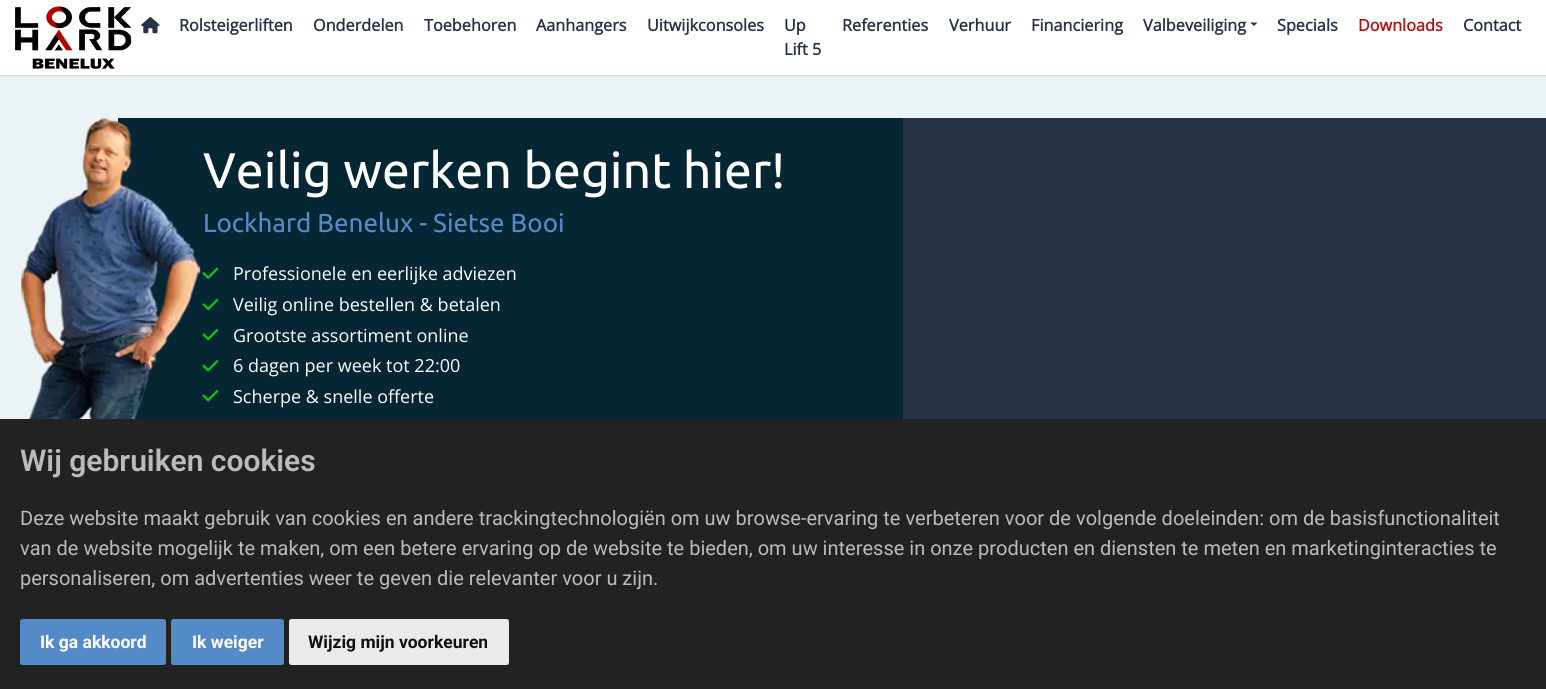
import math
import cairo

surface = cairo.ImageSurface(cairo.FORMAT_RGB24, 1546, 689)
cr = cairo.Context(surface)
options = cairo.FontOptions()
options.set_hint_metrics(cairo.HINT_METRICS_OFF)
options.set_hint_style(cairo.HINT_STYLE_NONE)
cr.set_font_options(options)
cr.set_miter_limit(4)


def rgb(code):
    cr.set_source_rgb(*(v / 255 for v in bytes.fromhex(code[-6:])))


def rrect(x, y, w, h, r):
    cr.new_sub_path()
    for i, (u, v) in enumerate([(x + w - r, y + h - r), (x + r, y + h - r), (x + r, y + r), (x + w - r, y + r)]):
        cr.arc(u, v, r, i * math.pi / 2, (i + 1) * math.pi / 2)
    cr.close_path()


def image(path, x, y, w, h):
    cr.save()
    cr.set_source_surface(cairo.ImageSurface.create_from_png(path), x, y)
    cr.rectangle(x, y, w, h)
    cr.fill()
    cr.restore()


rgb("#ecf3f6")
cr.paint()
rgb("#ffffff")
cr.rectangle(0, 0, 1546, 75)
cr.fill()
rgb("#d2d2d2")
cr.rectangle(0, 75, 1546, 1)
cr.fill()
image("img/1.png", 15, 6, 117, 63)
image("img/2.png", 141, 17, 19, 17)
rgb("#263248")
cr.new_path()
cr.move_to(1250, 22.5)
cr.line_to(1257.5, 22.5)
cr.line_to(1254, 26)
cr.close_path()
cr.fill()
rgb("#072634")
cr.rectangle(118, 118, 785, 301)
cr.fill()
image("img/3.png", 21, 117, 180, 302)
image("img/4.png", 202, 267, 17, 12)
image("img/5.png", 202, 298, 17, 13)
image("img/5.png", 202, 328, 17, 13)
image("img/6.png", 202, 360, 17, 12)
image("img/6.png", 202, 390, 17, 12)
rgb("#263248")
cr.rectangle(903, 118, 643, 301)
cr.fill()
rgb("#222222")
cr.rectangle(0, 419, 1546, 270)
cr.fill()
rgb("#558ac8")
rrect(20, 619, 146, 46, 2.5)
cr.fill()
rrect(171, 619, 113, 46, 2.5)
cr.fill()
rgb("#eaeaea")
rrect(289, 619, 220, 46, 2.5)
cr.fill()
cr.select_font_face("Open Sans", cairo.FONT_SLANT_NORMAL, cairo.FONT_WEIGHT_BOLD)
cr.set_font_size(16.25)
rgb("#263248")
for x, y, s in [
    (179, 31, "Rolsteigerliften"),
    (313, 31, "Onderdelen"),
    (424, 31, "Toebehoren"),
    (536, 31, "Aanhangers"),
    (647, 31, "Uitwijkconsoles"),
    (784, 31, "Up"),
    (784, 55, "Lift 5"),
    (842, 31, "Referenties"),
    (949, 31, "Verhuur"),
    (1031, 31, "Financiering"),
    (1143, 31, "Valbeveiliging"),
    (1277, 31, "Specials"),
]:
    cr.move_to(x, y)
    cr.show_text(s)
rgb("#b51110")
cr.move_to(1358, 31)
cr.show_text("Downloads")
rgb("#263248")
cr.move_to(1463, 31)
cr.show_text("Contact")
cr.select_font_face("Ubuntu")
cr.set_font_size(50)
rgb("#ffffff")
cr.move_to(203, 188)
cr.show_text("Veilig werken begint hier!")
cr.set_font_size(26)
rgb("#558ac8")
cr.move_to(203, 232)
cr.show_text("Lockhard Benelux - Sietse Booi")
cr.select_font_face("Open Sans")
cr.set_font_size(18)
rgb("#ffffff")
for x, y, s in [
    (233, 280, "Professionele en eerlijke adviezen"),
    (233, 311, "Veilig online bestellen & betalen"),
    (233, 342, "Grootste assortiment online"),
    (233, 372, "6 dagen per week tot 22:00"),
    (233, 403, "Scherpe & snelle offerte"),
]:
    cr.move_to(x, y)
    cr.show_text(s)
cr.select_font_face("Roboto SemiBold")
cr.set_font_size(30)
rgb("#bbbbbb")
cr.move_to(20, 471)
cr.show_text("Wij gebruiken cookies")
cr.select_font_face("Roboto")
cr.set_font_size(20)
for x, y, s in [
    (20, 525, "Deze website maakt gebruik van cookies en andere trackingtechnologiën om uw browse-ervaring te verbeteren voor de volgende doeleinden: om de basisfunctionaliteit"),
    (20, 555, "van de website mogelijk te maken, om een betere ervaring op de website te bieden, om uw interesse in onze producten en diensten te meten en marketinginteracties te"),
    (20, 585, "personaliseren, om advertenties weer te geven die relevanter voor u zijn."),
]:
    cr.move_to(x, y)
    cr.show_text(s)
cr.select_font_face("Roboto", cairo.FONT_SLANT_NORMAL, cairo.FONT_WEIGHT_BOLD)
cr.set_font_size(17.5)
rgb("#ffffff")
cr.move_to(40, 648)
cr.show_text("Ik ga akkoord")
cr.move_to(192, 648)
cr.show_text("Ik weiger")
rgb("#111111")
cr.move_to(308, 648)
cr.show_text("Wijzig mijn voorkeuren")
surface.write_to_png("page.png")
